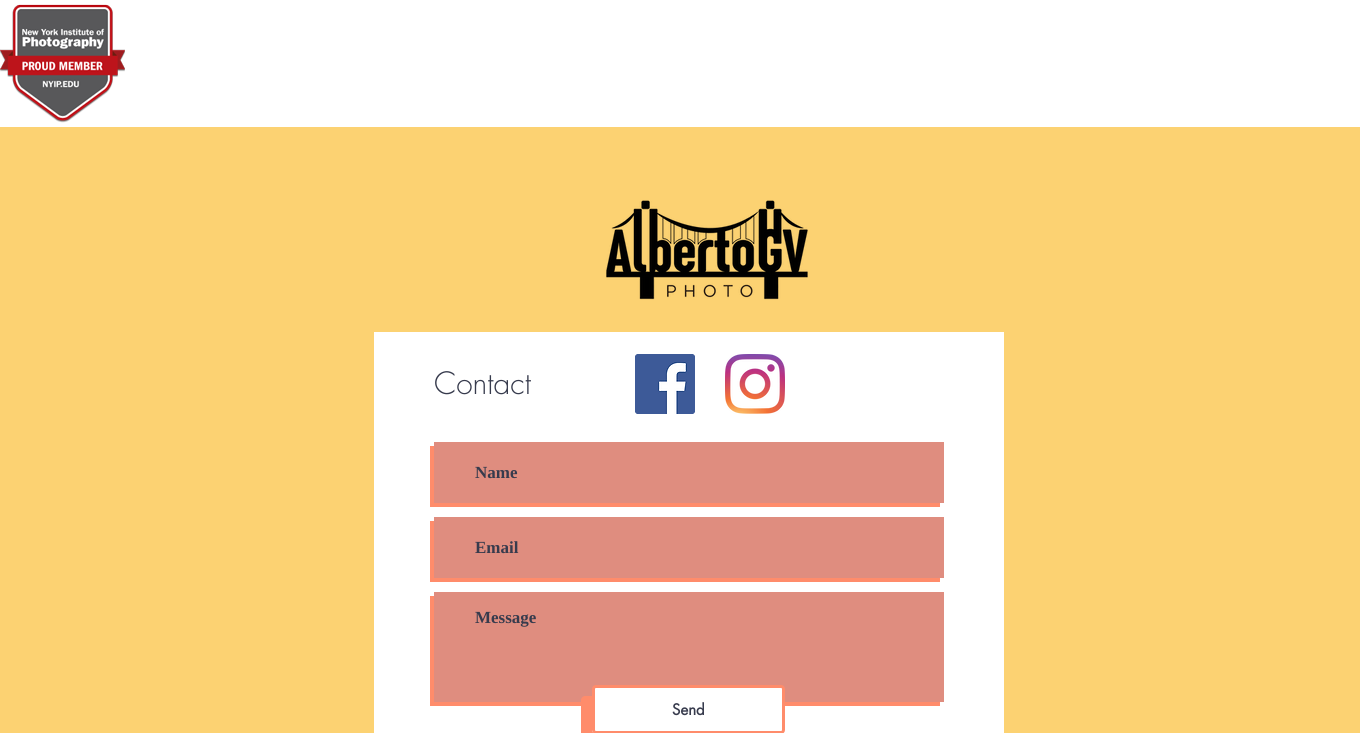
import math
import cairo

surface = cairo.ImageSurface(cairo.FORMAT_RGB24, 1360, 733)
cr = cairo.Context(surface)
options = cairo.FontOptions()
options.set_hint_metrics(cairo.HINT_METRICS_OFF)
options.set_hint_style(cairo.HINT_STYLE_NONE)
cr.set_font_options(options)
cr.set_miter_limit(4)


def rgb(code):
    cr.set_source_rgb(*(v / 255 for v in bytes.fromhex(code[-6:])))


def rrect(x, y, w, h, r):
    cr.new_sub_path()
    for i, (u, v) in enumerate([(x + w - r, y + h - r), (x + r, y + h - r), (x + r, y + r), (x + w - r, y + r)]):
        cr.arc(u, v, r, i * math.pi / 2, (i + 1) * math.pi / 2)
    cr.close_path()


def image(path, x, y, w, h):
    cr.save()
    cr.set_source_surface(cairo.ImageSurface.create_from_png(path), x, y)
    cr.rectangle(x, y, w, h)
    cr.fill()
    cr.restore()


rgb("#ffffff")
cr.paint()
image("img/1.png", 0, 4, 125, 119)
rgb("#fcd272")
cr.rectangle(0, 127, 1360, 606)
cr.fill()
image("img/2.png", 606, 200, 202, 100)
rgb("#ffffff")
cr.rectangle(374, 332, 630, 401)
cr.fill()
image("img/3.png", 635, 354, 60, 60)
image("img/4.png", 725, 354, 60, 60)
rgb("#ff8c6b")
cr.new_path()
cr.move_to(430, 446)
cr.line_to(430, 507)
cr.line_to(940, 507)
cr.line_to(940, 503)
cr.line_to(434, 503)
cr.line_to(434, 446)
cr.close_path()
cr.fill()
rgb("#df8d7f")
cr.rectangle(434, 442, 510, 61)
cr.fill()
rgb("#ff8c6b")
cr.new_path()
cr.move_to(430, 521)
cr.line_to(430, 582)
cr.line_to(940, 582)
cr.line_to(940, 578)
cr.line_to(434, 578)
cr.line_to(434, 521)
cr.close_path()
cr.fill()
rgb("#df8d7f")
cr.rectangle(434, 517, 510, 61)
cr.fill()
rgb("#ff8c6b")
cr.new_path()
cr.move_to(430, 596)
cr.line_to(430, 706)
cr.line_to(940, 706)
cr.line_to(940, 702)
cr.line_to(434, 702)
cr.line_to(434, 596)
cr.close_path()
cr.fill()
rgb("#df8d7f")
cr.rectangle(434, 592, 510, 110)
cr.fill()
rgb("#ff8c6b")
cr.new_path()
cr.move_to(585, 696)
cr.curve_to(583, 696, 581, 698, 581, 700)
cr.line_to(581, 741)
cr.curve_to(581, 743, 583, 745, 585, 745)
cr.line_to(770, 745)
cr.curve_to(772, 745, 774, 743, 774, 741)
cr.line_to(774, 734)
cr.line_to(596, 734)
cr.curve_to(594, 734, 592, 732, 592, 730)
cr.line_to(592, 696)
cr.close_path()
cr.fill()
rgb("#ffffff")
rrect(593.5, 686.5, 190, 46, 2.5)
cr.fill_preserve()
rgb("#ff8c6b")
cr.set_line_width(3)
cr.stroke()
cr.select_font_face("futura Light")
cr.set_font_size(30)
rgb("#373b4d")
cr.move_to(434, 394)
cr.show_text("Contact")
cr.select_font_face("Liberation Serif", cairo.FONT_SLANT_NORMAL, cairo.FONT_WEIGHT_BOLD)
cr.set_font_size(17)
for x, y, s in [
    (475, 478, "Name"),
    (475, 553, "Email"),
    (475, 623, "Message"),
]:
    cr.move_to(x, y)
    cr.show_text(s)
cr.select_font_face("futura", cairo.FONT_SLANT_NORMAL, cairo.FONT_WEIGHT_BOLD)
cr.set_font_size(15)
cr.move_to(672, 715)
cr.show_text("Send")
surface.write_to_png("page.png")
